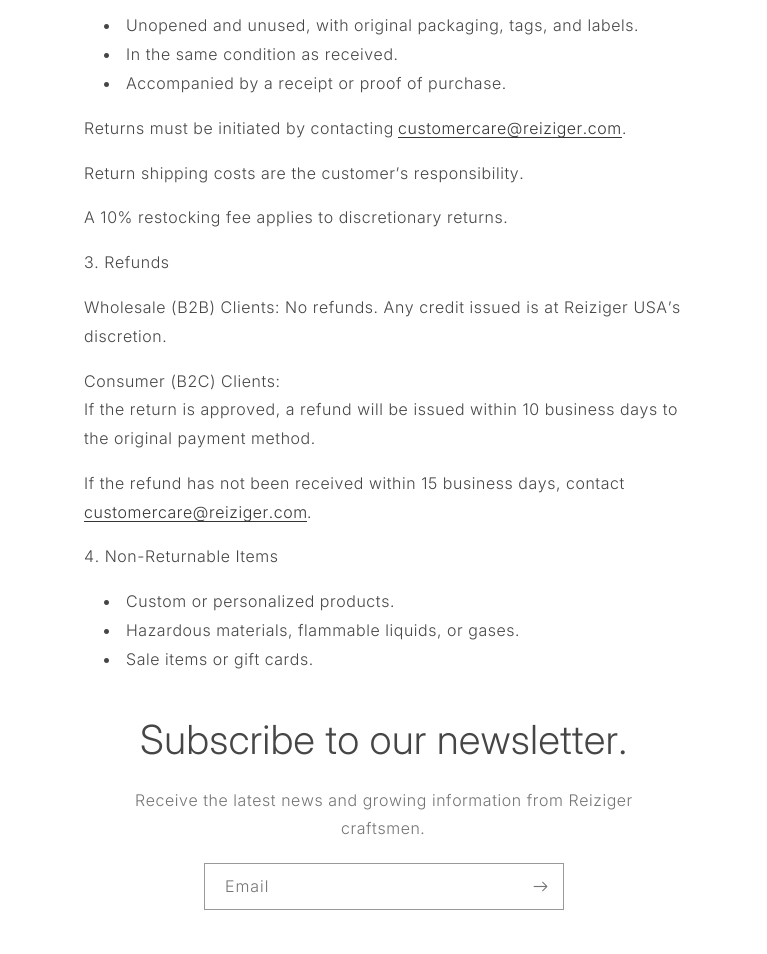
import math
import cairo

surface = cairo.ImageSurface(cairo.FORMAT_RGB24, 767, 954)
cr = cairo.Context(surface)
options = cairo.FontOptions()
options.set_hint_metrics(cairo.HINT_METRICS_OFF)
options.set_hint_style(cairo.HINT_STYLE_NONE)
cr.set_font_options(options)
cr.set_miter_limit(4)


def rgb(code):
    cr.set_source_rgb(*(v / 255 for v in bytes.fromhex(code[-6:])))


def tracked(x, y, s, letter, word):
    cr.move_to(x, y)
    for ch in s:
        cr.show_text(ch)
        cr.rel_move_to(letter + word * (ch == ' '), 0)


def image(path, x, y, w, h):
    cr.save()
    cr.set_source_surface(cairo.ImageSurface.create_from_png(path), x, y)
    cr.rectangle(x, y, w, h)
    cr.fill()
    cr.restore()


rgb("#ffffff")
cr.paint()
rgb("#464646")
cr.arc(106.5, 26.5, 2.5, 0, 2 * math.pi)
cr.fill()
cr.arc(106.5, 55.5, 2.5, 0, 2 * math.pi)
cr.fill()
cr.arc(106.5, 84.5, 2.5, 0, 2 * math.pi)
cr.fill()
rgb("#363636")
cr.rectangle(398, 137, 224, 1)
cr.fill()
cr.rectangle(84, 521, 223, 1)
cr.fill()
rgb("#464646")
cr.arc(106.5, 602.5, 2.5, 0, 2 * math.pi)
cr.fill()
cr.arc(106.5, 631.5, 2.5, 0, 2 * math.pi)
cr.fill()
cr.arc(106.5, 660.5, 2.5, 0, 2 * math.pi)
cr.fill()
cr.rectangle(204.5, 863.5, 359, 46)
rgb("#999999")
cr.set_line_width(1)
cr.stroke()
image("img/1.png", 533, 881, 15, 11)
cr.select_font_face("Inter Light")
cr.set_font_size(16)
rgb("#464646")
for x, y, s in [
    (126, 31, "Unopened and unused, with original packaging, tags, and labels."),
    (126, 60, "In the same condition as received."),
    (126, 89, "Accompanied by a receipt or proof of purchase."),
    (84, 134, "Returns must be initiated by contacting"),
]:
    tracked(x, y, s, 0.6, 0)
rgb("#353535")
tracked(398, 134, "customercare@reiziger.com", 0.6, 0)
rgb("#464646")
for x, y, s in [
    (622, 134, "."),
    (84, 179, "Return shipping costs are the customer’s responsibility."),
    (84, 223, "A 10% restocking fee applies to discretionary returns."),
    (84, 268, "3. Refunds"),
    (84, 313, "Wholesale (B2B) Clients: No refunds. Any credit issued is at Reiziger USA’s"),
    (84, 342, "discretion."),
    (84, 387, "Consumer (B2C) Clients:"),
    (84, 415, "If the return is approved, a refund will be issued within 10 business days to"),
    (84, 444, "the original payment method."),
    (84, 489, "If the refund has not been received within 15 business days, contact"),
]:
    tracked(x, y, s, 0.6, 0)
rgb("#353535")
tracked(84, 518, "customercare@reiziger.com", 0.6, 0)
rgb("#464646")
for x, y, s in [
    (307, 518, "."),
    (84, 562, "4. Non-Returnable Items"),
    (126, 607, "Custom or personalized products."),
    (126, 636, "Hazardous materials, flammable liquids, or gases."),
    (126, 665, "Sale items or gift cards."),
]:
    tracked(x, y, s, 0.6, 0)
cr.select_font_face("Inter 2 Light")
cr.set_font_size(40)
tracked(140, 754, "Subscribe to our newsletter.", 0.6, 0)
cr.select_font_face("Inter Light")
cr.set_font_size(16)
rgb("#747474")
tracked(135, 806, "Receive the latest news and growing information from Reiziger", 0.6, 0)
tracked(341, 834, "craftsmen.", 0.6, 0)
tracked(225, 892, "Email", 1, 0)
surface.write_to_png("page.png")
